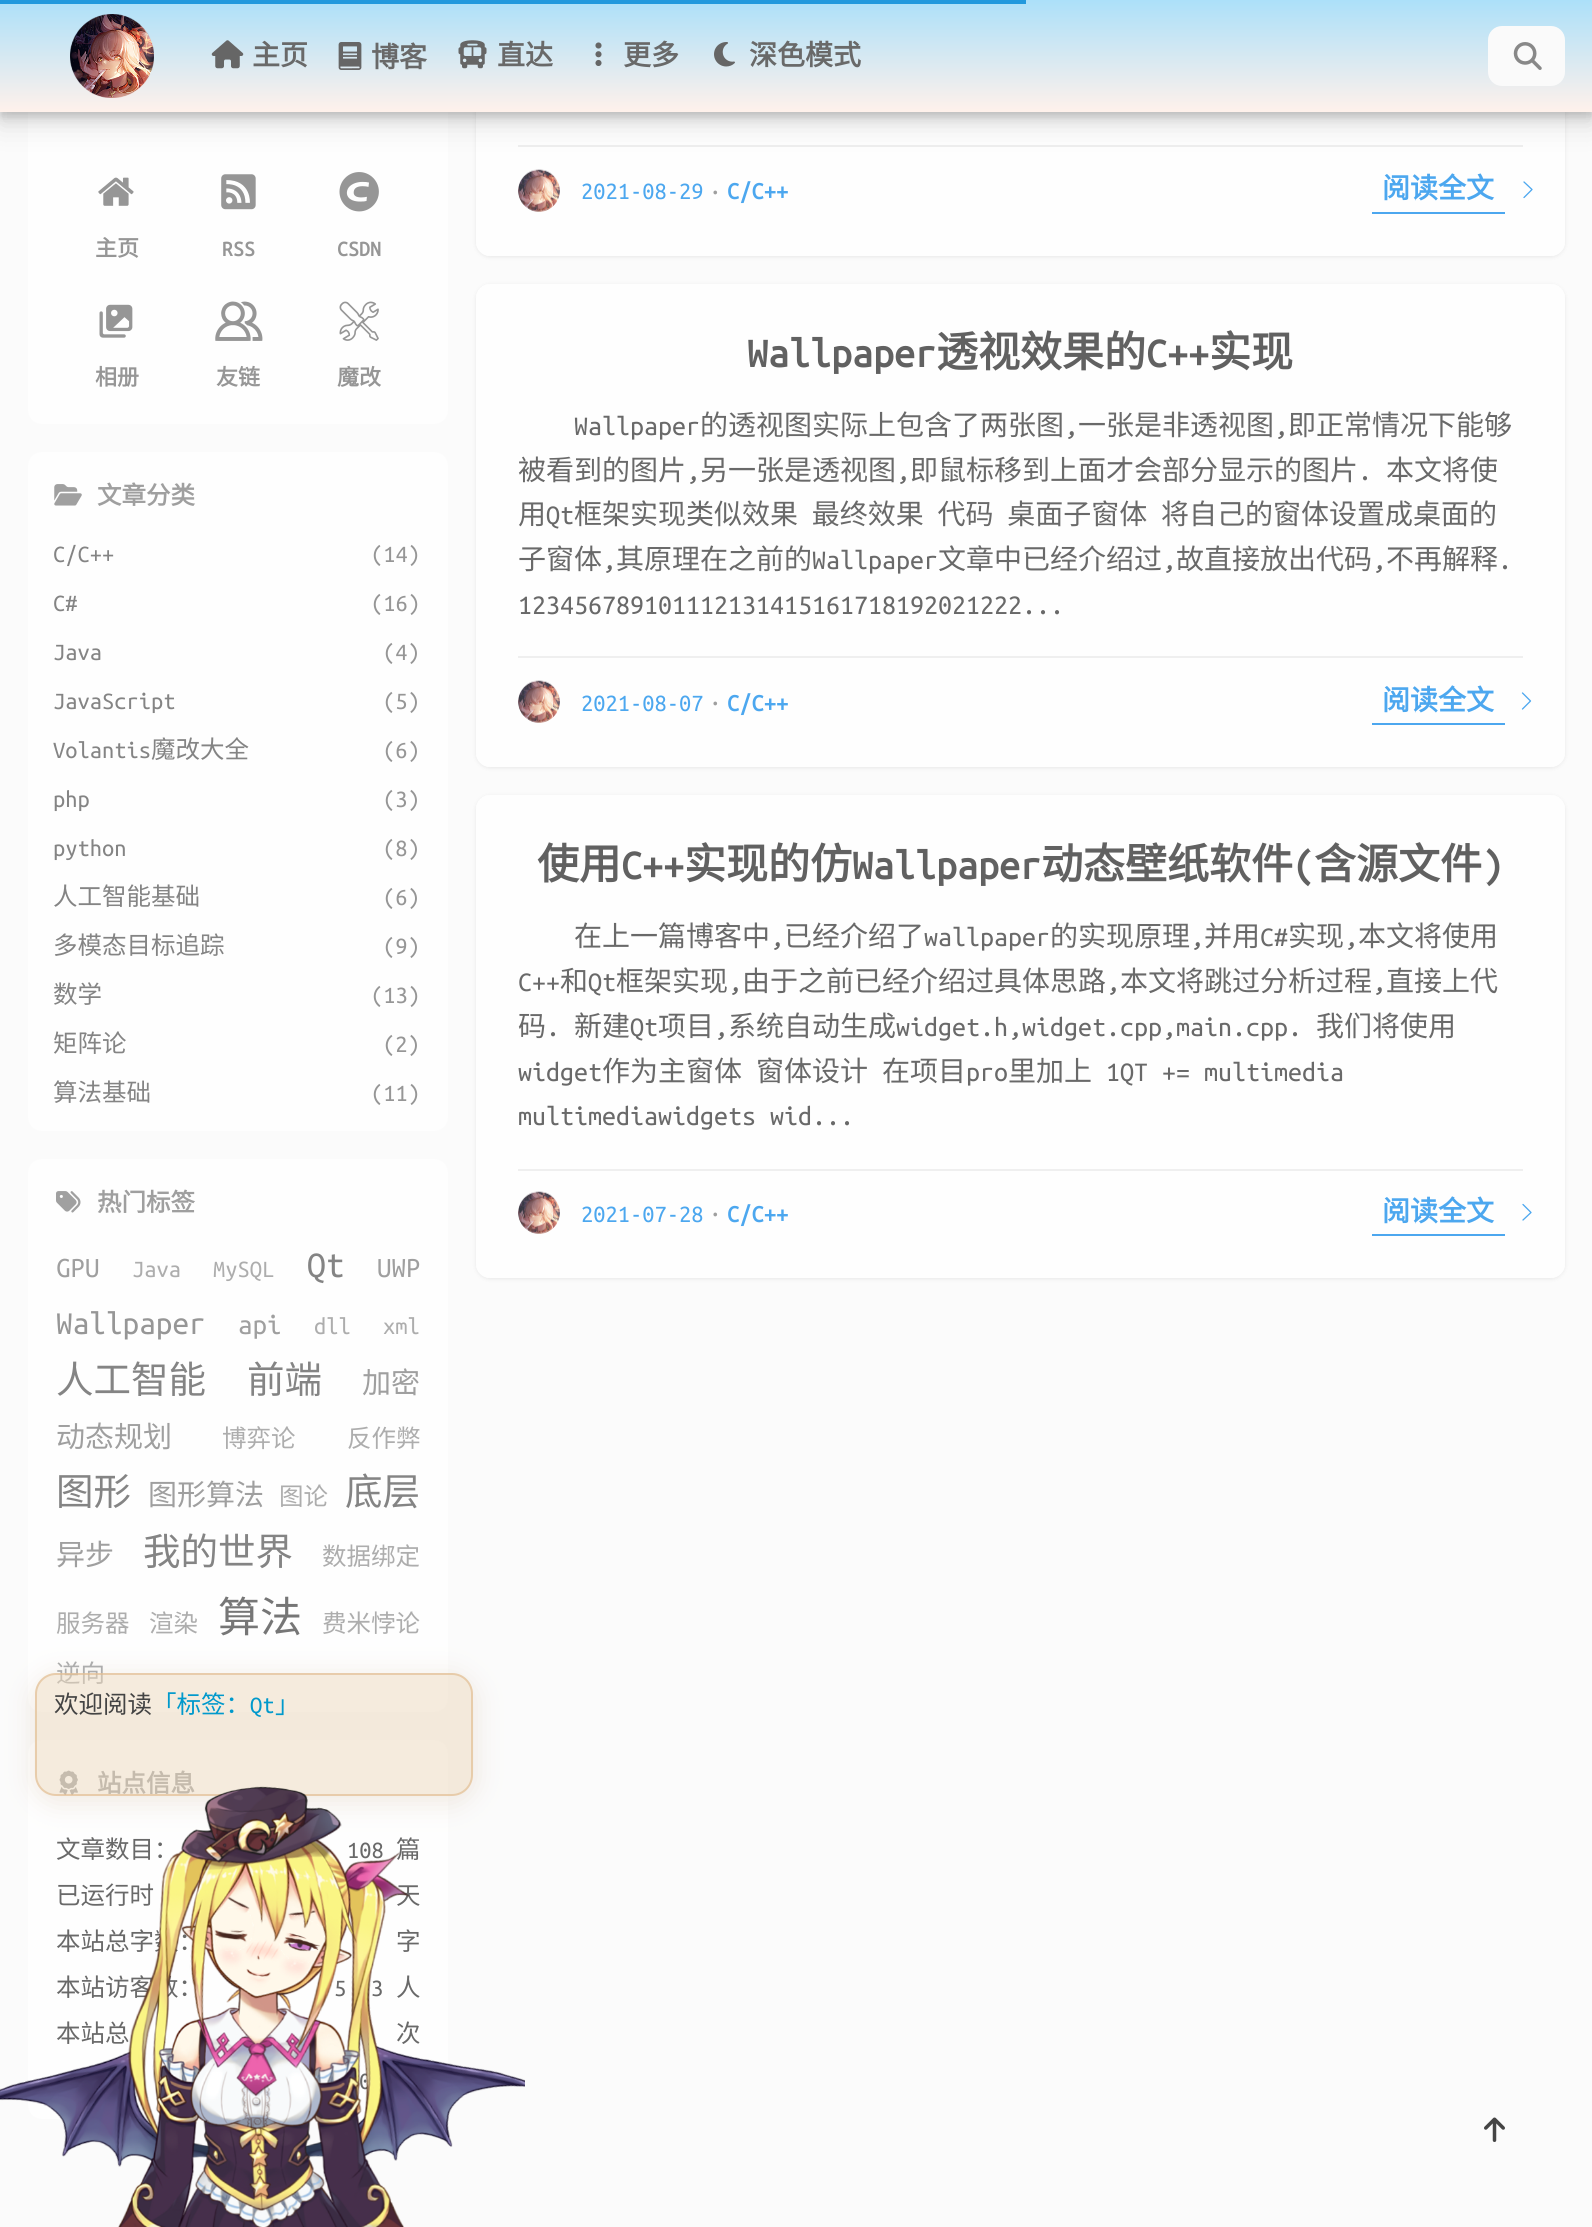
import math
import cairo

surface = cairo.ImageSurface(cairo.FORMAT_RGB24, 1592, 2227)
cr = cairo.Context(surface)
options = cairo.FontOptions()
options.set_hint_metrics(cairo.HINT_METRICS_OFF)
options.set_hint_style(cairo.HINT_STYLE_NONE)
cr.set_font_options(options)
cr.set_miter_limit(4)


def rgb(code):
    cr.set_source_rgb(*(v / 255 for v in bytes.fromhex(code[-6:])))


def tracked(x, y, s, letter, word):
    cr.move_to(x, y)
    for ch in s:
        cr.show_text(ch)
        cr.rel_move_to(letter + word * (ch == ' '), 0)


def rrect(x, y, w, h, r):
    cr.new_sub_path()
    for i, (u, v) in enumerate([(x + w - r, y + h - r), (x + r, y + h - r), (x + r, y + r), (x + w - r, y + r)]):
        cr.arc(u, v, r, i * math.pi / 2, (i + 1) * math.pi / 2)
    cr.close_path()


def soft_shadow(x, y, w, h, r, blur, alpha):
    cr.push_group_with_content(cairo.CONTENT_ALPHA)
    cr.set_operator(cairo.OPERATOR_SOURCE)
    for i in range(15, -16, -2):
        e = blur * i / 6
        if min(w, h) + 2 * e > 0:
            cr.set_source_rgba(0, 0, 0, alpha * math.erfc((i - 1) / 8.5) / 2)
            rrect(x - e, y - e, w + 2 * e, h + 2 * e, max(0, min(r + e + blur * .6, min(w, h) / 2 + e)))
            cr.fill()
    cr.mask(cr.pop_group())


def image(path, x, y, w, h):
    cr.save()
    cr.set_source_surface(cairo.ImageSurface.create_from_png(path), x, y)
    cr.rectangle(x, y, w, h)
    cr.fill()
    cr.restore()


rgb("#fbfbfb")
cr.paint()
rgb("#fefefe")
rrect(28, 53, 420, 371, 14)
cr.fill()
cr.save()
cr.set_fill_rule(cairo.FILL_RULE_EVEN_ODD)
cr.new_path()
cr.move_to(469, 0)
cr.line_to(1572, 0)
cr.line_to(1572, 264)
cr.line_to(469, 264)
cr.close_path()
cr.move_to(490, -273)
cr.line_to(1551, -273)
cr.curve_to(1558.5, -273, 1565, -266.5, 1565, -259)
cr.line_to(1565, 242)
cr.curve_to(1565, 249.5, 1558.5, 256, 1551, 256)
cr.line_to(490, 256)
cr.curve_to(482.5, 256, 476, 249.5, 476, 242)
cr.line_to(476, -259)
cr.curve_to(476, -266.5, 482.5, -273, 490, -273)
cr.close_path()
cr.clip()
rgb("#323232")
soft_shadow(476, -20, 1089, 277, 14, 2, 0.1)
cr.restore()
cr.set_source_rgba(0.996, 0.996, 0.996, 0.9)
rrect(476, -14, 1089, 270, 14)
cr.fill()
rgb("#efefef")
cr.rectangle(518, 145, 1005, 2)
cr.fill()
rgb("#000000")
soft_shadow(0, 14, 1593, 112, 0, 14, 0.1)
soft_shadow(0, 7, 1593, 112, 0, 7, 0.1)
soft_shadow(0, 4, 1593, 112, 0, 3.5, 0.1)
gradient = cairo.LinearGradient(796, 112, 796, 0)
gradient.add_color_stop_rgba(0, 1, 0.945, 0.922, 1)
gradient.add_color_stop_rgba(1, 0.675, 0.878, 0.976, 1)
cr.set_source(gradient)
cr.rectangle(0, 0, 1592, 112)
cr.fill()
rgb("#2299dd")
cr.rectangle(0, 0, 1026, 4)
cr.fill()
image("img/1.png", 70, 14, 84, 84)
image("img/2.png", 211, 40, 33, 29)
image("img/3.png", 338, 42, 24, 28)
image("img/4.png", 458, 40, 29, 29)
image("img/5.png", 595, 42, 7, 24)
image("img/6.png", 714, 42, 21, 25)
rgb("#fafafa")
rrect(1488, 26, 77, 60, 14)
cr.fill()
image("img/7.png", 1513, 42, 29, 28)
image("img/8.png", 98, 177, 36, 29)
image("img/9.png", 221, 174, 35, 36)
image("img/10.png", 339, 172, 40, 40)
image("img/11.png", 99, 304, 34, 34)
image("img/12.png", 215, 301, 48, 40)
image("img/13.png", 339, 301, 40, 40)
rgb("#fefefe")
rrect(28, 452, 420, 679, 14)
cr.fill()
image("img/14.png", 54, 484, 28, 22)
rrect(28, 1159, 420, 553, 14)
cr.fill()
image("img/15.png", 56, 1191, 25, 22)
rrect(28, 1740, 420, 379, 14)
cr.fill()
image("img/16.png", 59, 1770, 19, 25)
image("img/17.png", 518, 169, 42, 43)
cr.new_path()
cr.move_to(1524, 182)
cr.line_to(1532, 189.5)
cr.move_to(1532, 189.5)
cr.line_to(1524, 197.5)
rgb("#4ca7ef")
cr.set_line_width(1.3)
cr.set_line_cap(cairo.LINE_CAP_ROUND)
cr.set_line_join(cairo.LINE_JOIN_ROUND)
cr.stroke()
cr.rectangle(1372, 212, 133, 2)
cr.fill()
cr.save()
cr.set_fill_rule(cairo.FILL_RULE_EVEN_ODD)
cr.new_path()
cr.move_to(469, 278)
cr.line_to(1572, 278)
cr.line_to(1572, 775)
cr.line_to(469, 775)
cr.close_path()
cr.move_to(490, 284)
cr.line_to(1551, 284)
cr.curve_to(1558.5, 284, 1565, 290.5, 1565, 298)
cr.line_to(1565, 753)
cr.curve_to(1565, 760.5, 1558.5, 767, 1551, 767)
cr.line_to(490, 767)
cr.curve_to(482.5, 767, 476, 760.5, 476, 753)
cr.line_to(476, 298)
cr.curve_to(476, 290.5, 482.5, 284, 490, 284)
cr.close_path()
cr.clip()
rgb("#323232")
soft_shadow(476, 285, 1089, 483, 14, 2, 0.1)
cr.restore()
cr.set_source_rgba(0.996, 0.996, 0.996, 0.9)
rrect(476, 284, 1089, 483, 14)
cr.fill()
rgb("#efefef")
cr.rectangle(518, 656, 1005, 2)
cr.fill()
image("img/17.png", 518, 680, 42, 43)
cr.new_path()
cr.move_to(1522.5, 693)
cr.line_to(1530.5, 701)
cr.move_to(1530.5, 701)
cr.line_to(1522.5, 709)
rgb("#4ca7ef")
cr.stroke()
cr.rectangle(1372, 723, 133, 2)
cr.fill()
cr.save()
cr.set_fill_rule(cairo.FILL_RULE_EVEN_ODD)
cr.new_path()
cr.move_to(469, 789)
cr.line_to(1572, 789)
cr.line_to(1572, 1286)
cr.line_to(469, 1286)
cr.close_path()
cr.move_to(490, 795)
cr.line_to(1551, 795)
cr.curve_to(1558.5, 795, 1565, 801.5, 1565, 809)
cr.line_to(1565, 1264)
cr.curve_to(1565, 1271.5, 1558.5, 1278, 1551, 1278)
cr.line_to(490, 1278)
cr.curve_to(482.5, 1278, 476, 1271.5, 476, 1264)
cr.line_to(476, 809)
cr.curve_to(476, 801.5, 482.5, 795, 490, 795)
cr.close_path()
cr.clip()
rgb("#323232")
soft_shadow(476, 796, 1089, 483, 14, 2, 0.1)
cr.restore()
cr.set_source_rgba(0.996, 0.996, 0.996, 0.9)
rrect(476, 795, 1089, 483, 14)
cr.fill()
rgb("#efefef")
cr.rectangle(518, 1169, 1005, 2)
cr.fill()
image("img/17.png", 518, 1191, 42, 43)
cr.new_path()
cr.move_to(1523, 1204.5)
cr.line_to(1531, 1212.5)
cr.move_to(1531, 1212.5)
cr.line_to(1523, 1220)
rgb("#4ca7ef")
cr.stroke()
cr.rectangle(1372, 1234, 133, 2)
cr.fill()
image("img/18.png", 1484, 2117, 21, 25)
cr.save()
cr.set_fill_rule(cairo.FILL_RULE_EVEN_ODD)
cr.new_path()
cr.move_to(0, 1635)
cr.line_to(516, 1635)
cr.line_to(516, 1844)
cr.line_to(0, 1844)
cr.close_path()
cr.move_to(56, 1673)
cr.line_to(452, 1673)
cr.curve_to(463.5, 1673, 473, 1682.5, 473, 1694)
cr.line_to(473, 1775)
cr.curve_to(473, 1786.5, 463.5, 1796, 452, 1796)
cr.line_to(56, 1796)
cr.curve_to(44.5, 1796, 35, 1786.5, 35, 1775)
cr.line_to(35, 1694)
cr.curve_to(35, 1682.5, 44.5, 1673, 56, 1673)
cr.close_path()
cr.clip()
rgb("#bf9e76")
soft_shadow(32, 1675, 444, 129, 25, 13, 0.2)
cr.restore()
cr.select_font_face("Noto Sans CJK SC", cairo.FONT_SLANT_NORMAL, cairo.FONT_WEIGHT_BOLD)
cr.set_font_size(28)
rgb("#696969")
for x, y, s in [
    (252, 65, "主页"),
    (371, 67, "博客"),
    (497, 65, "直达"),
    (623, 65, "更多"),
    (749, 65, "深色模式"),
]:
    cr.move_to(x, y)
    cr.show_text(s)
cr.set_font_size(22)
rgb("#969696")
cr.move_to(95, 256)
cr.show_text("主页")
cr.select_font_face("Ubuntu Mono", cairo.FONT_SLANT_NORMAL, cairo.FONT_WEIGHT_BOLD)
cr.move_to(222, 256)
cr.show_text("RSS")
cr.move_to(337, 256)
cr.show_text("CSDN")
cr.select_font_face("Noto Sans CJK SC", cairo.FONT_SLANT_NORMAL, cairo.FONT_WEIGHT_BOLD)
for x, y, s in [
    (95, 385, "相册"),
    (216, 385, "友链"),
    (337, 385, "魔改"),
]:
    cr.move_to(x, y)
    cr.show_text(s)
cr.set_font_size(24.5)
rgb("#9f9f9f")
cr.move_to(97, 504)
cr.show_text("文章分类")
cr.select_font_face("Ubuntu Mono")
rgb("#848484")
cr.move_to(53, 562)
cr.show_text("C/C++")
rgb("#969696")
cr.move_to(371, 562)
cr.show_text("(14)")
rgb("#848484")
cr.move_to(53, 611)
cr.show_text("C#")
rgb("#969696")
cr.move_to(371, 611)
cr.show_text("(16)")
rgb("#848484")
cr.move_to(53, 660)
cr.show_text("Java")
rgb("#969696")
cr.move_to(383, 660)
cr.show_text("(4)")
rgb("#848484")
cr.move_to(53, 709)
cr.show_text("JavaScript")
rgb("#969696")
cr.move_to(383, 709)
cr.show_text("(5)")
rgb("#848484")
cr.move_to(53, 758)
cr.show_text("Volantis")
cr.select_font_face("Noto Sans CJK SC")
cr.move_to(151, 758)
cr.show_text("魔改大全")
cr.select_font_face("Ubuntu Mono")
rgb("#969696")
cr.move_to(383, 758)
cr.show_text("(6)")
rgb("#848484")
cr.move_to(53, 807)
cr.show_text("php")
rgb("#969696")
cr.move_to(383, 807)
cr.show_text("(3)")
rgb("#848484")
cr.move_to(53, 856)
cr.show_text("python")
rgb("#969696")
cr.move_to(383, 856)
cr.show_text("(8)")
cr.select_font_face("Noto Sans CJK SC")
rgb("#848484")
cr.move_to(53, 905)
cr.show_text("人工智能基础")
cr.select_font_face("Ubuntu Mono")
rgb("#969696")
cr.move_to(383, 905)
cr.show_text("(6)")
cr.select_font_face("Noto Sans CJK SC")
rgb("#848484")
cr.move_to(53, 954)
cr.show_text("多模态目标追踪")
cr.select_font_face("Ubuntu Mono")
rgb("#969696")
cr.move_to(383, 954)
cr.show_text("(9)")
cr.select_font_face("Noto Sans CJK SC")
rgb("#848484")
cr.move_to(53, 1003)
cr.show_text("数学")
cr.select_font_face("Ubuntu Mono")
rgb("#969696")
cr.move_to(371, 1003)
cr.show_text("(13)")
cr.select_font_face("Noto Sans CJK SC")
rgb("#848484")
cr.move_to(53, 1052)
cr.show_text("矩阵论")
cr.select_font_face("Ubuntu Mono")
rgb("#969696")
cr.move_to(383, 1052)
cr.show_text("(2)")
cr.select_font_face("Noto Sans CJK SC")
rgb("#848484")
cr.move_to(53, 1101)
cr.show_text("算法基础")
cr.select_font_face("Ubuntu Mono")
rgb("#969696")
cr.move_to(371, 1101)
cr.show_text("(11)")
cr.select_font_face("Noto Sans CJK SC", cairo.FONT_SLANT_NORMAL, cairo.FONT_WEIGHT_BOLD)
rgb("#9f9f9f")
cr.move_to(97, 1211)
cr.show_text("热门标签")
cr.select_font_face("Ubuntu Mono")
cr.set_font_size(29)
cr.move_to(56, 1277)
cr.show_text("GPU")
cr.set_font_size(24.5)
rgb("#adadad")
cr.move_to(132, 1277)
cr.show_text("Java")
cr.move_to(213, 1277)
cr.show_text("MySQL")
cr.set_font_size(37.5)
rgb("#848484")
cr.move_to(307, 1277)
cr.show_text("Qt")
cr.set_font_size(29)
rgb("#9f9f9f")
cr.move_to(377, 1277)
cr.show_text("UWP")
cr.set_font_size(33.25)
rgb("#969696")
cr.move_to(56, 1334)
cr.show_text("Wallpaper")
cr.set_font_size(29)
rgb("#9f9f9f")
cr.move_to(238, 1334)
cr.show_text("api")
cr.set_font_size(24.5)
rgb("#adadad")
cr.move_to(314, 1334)
cr.show_text("dll")
cr.move_to(383, 1334)
cr.show_text("xml")
cr.select_font_face("Noto Sans CJK SC")
cr.set_font_size(37.5)
rgb("#848484")
cr.move_to(56, 1393)
cr.show_text("人工智能")
cr.move_to(247, 1393)
cr.show_text("前端")
cr.set_font_size(29)
rgb("#9f9f9f")
cr.move_to(362, 1393)
cr.show_text("加密")
cr.move_to(56, 1447)
cr.show_text("动态规划")
cr.set_font_size(24.5)
rgb("#adadad")
cr.move_to(222, 1447)
cr.show_text("博弈论")
cr.move_to(347, 1447)
cr.show_text("反作弊")
cr.set_font_size(37.5)
rgb("#848484")
cr.move_to(56, 1505)
cr.show_text("图形")
cr.set_font_size(29)
rgb("#9f9f9f")
cr.move_to(148, 1505)
cr.show_text("图形算法")
cr.set_font_size(24.5)
rgb("#adadad")
cr.move_to(279, 1505)
cr.show_text("图论")
cr.set_font_size(37.5)
rgb("#848484")
cr.move_to(345, 1505)
cr.show_text("底层")
cr.set_font_size(29)
rgb("#9f9f9f")
cr.move_to(56, 1565)
cr.show_text("异步")
cr.set_font_size(37.5)
rgb("#848484")
cr.move_to(143, 1565)
cr.show_text("我的世界")
cr.set_font_size(24.5)
rgb("#adadad")
for x, y, s in [
    (322, 1565, "数据绑定"),
    (56, 1632, "服务器"),
    (149, 1632, "渲染"),
]:
    cr.move_to(x, y)
    cr.show_text(s)
cr.set_font_size(42)
rgb("#767676")
cr.move_to(218, 1632)
cr.show_text("算法")
cr.set_font_size(24.5)
rgb("#adadad")
cr.move_to(322, 1632)
cr.show_text("费米悖论")
cr.move_to(56, 1682)
cr.show_text("逆向")
cr.select_font_face("Noto Sans CJK SC", cairo.FONT_SLANT_NORMAL, cairo.FONT_WEIGHT_BOLD)
rgb("#9f9f9f")
cr.move_to(97, 1792)
cr.show_text("站点信息")
cr.select_font_face("Noto Sans CJK SC")
rgb("#696969")
cr.move_to(56, 1858)
cr.show_text("文章数目：")
cr.select_font_face("Ubuntu Mono")
cr.move_to(347, 1858)
cr.show_text("108")
cr.select_font_face("Noto Sans CJK SC")
for x, y, s in [
    (396, 1858, "篇"),
    (56, 1904, "已运行时"),
    (396, 1904, "天"),
    (56, 1950, "本站总字数："),
    (396, 1950, "字"),
    (56, 1996, "本站访客数："),
]:
    cr.move_to(x, y)
    cr.show_text(s)
cr.select_font_face("Ubuntu Mono")
cr.move_to(334, 1996)
cr.show_text("5")
cr.move_to(371, 1996)
cr.show_text("3")
cr.select_font_face("Noto Sans CJK SC")
for x, y, s in [
    (396, 1996, "人"),
    (56, 2042, "本站总"),
    (396, 2042, "次"),
]:
    cr.move_to(x, y)
    cr.show_text(s)
cr.select_font_face("Ubuntu Mono")
cr.move_to(359, 2089)
cr.show_text("0")
rgb("#4ca7ef")
cr.move_to(581, 199)
cr.show_text("2021-08-29")
cr.set_font_size(25)
rgb("#9f9f9f")
cr.move_to(709, 199)
cr.show_text("·")
cr.select_font_face("Ubuntu Mono", cairo.FONT_SLANT_NORMAL, cairo.FONT_WEIGHT_BOLD)
cr.set_font_size(24.5)
rgb("#4ca7ef")
cr.move_to(727, 199)
cr.show_text("C/C++")
cr.select_font_face("Noto Sans CJK SC", cairo.FONT_SLANT_NORMAL, cairo.FONT_WEIGHT_BOLD)
cr.set_font_size(28)
cr.move_to(1382, 198)
cr.show_text("阅读全文")
cr.select_font_face("Ubuntu Mono", cairo.FONT_SLANT_NORMAL, cairo.FONT_WEIGHT_BOLD)
cr.set_font_size(42)
rgb("#616161")
cr.move_to(747, 367)
cr.show_text("Wallpaper")
cr.select_font_face("Noto Sans CJK SC", cairo.FONT_SLANT_NORMAL, cairo.FONT_WEIGHT_BOLD)
cr.move_to(936, 367)
cr.show_text("透视效果的")
cr.select_font_face("Ubuntu Mono", cairo.FONT_SLANT_NORMAL, cairo.FONT_WEIGHT_BOLD)
cr.move_to(1146, 367)
cr.show_text("C++")
cr.select_font_face("Noto Sans CJK SC", cairo.FONT_SLANT_NORMAL, cairo.FONT_WEIGHT_BOLD)
cr.move_to(1209, 367)
cr.show_text("实现")
cr.select_font_face("Ubuntu Mono")
cr.set_font_size(28)
rgb("#696969")
cr.move_to(574, 435)
cr.show_text("Wallpaper")
cr.select_font_face("Noto Sans CJK SC")
cr.move_to(700, 435)
cr.show_text("的透视图实际上包含了两张图")
cr.select_font_face("Ubuntu Mono")
cr.move_to(1064, 435)
cr.show_text(",")
cr.select_font_face("Noto Sans CJK SC")
cr.move_to(1078, 435)
cr.show_text("一张是非透视图")
cr.select_font_face("Ubuntu Mono")
cr.move_to(1274, 435)
cr.show_text(",")
cr.select_font_face("Noto Sans CJK SC")
cr.move_to(1288, 435)
cr.show_text("即正常情况下能够")
cr.move_to(518, 480)
cr.show_text("被看到的图片")
cr.select_font_face("Ubuntu Mono")
cr.move_to(686, 480)
cr.show_text(",")
cr.select_font_face("Noto Sans CJK SC")
cr.move_to(700, 480)
cr.show_text("另一张是透视图")
cr.select_font_face("Ubuntu Mono")
cr.move_to(896, 480)
cr.show_text(",")
cr.select_font_face("Noto Sans CJK SC")
cr.move_to(910, 480)
cr.show_text("即鼠标移到上面才会部分显示的图片")
cr.select_font_face("Ubuntu Mono")
cr.move_to(1358, 480)
cr.show_text(".")
cr.select_font_face("Noto Sans CJK SC")
cr.move_to(1386, 480)
cr.show_text("本文将使")
cr.move_to(518, 524)
cr.show_text("用")
cr.select_font_face("Ubuntu Mono")
cr.move_to(546, 524)
cr.show_text("Qt")
cr.select_font_face("Noto Sans CJK SC")
tracked(574, 524, "框架实现类似效果 最终效果 代码 桌面子窗体 将自己的窗体设置成桌面的", 0, 7.5)
cr.move_to(518, 569)
cr.show_text("子窗体")
cr.select_font_face("Ubuntu Mono")
cr.move_to(602, 569)
cr.show_text(",")
cr.select_font_face("Noto Sans CJK SC")
cr.move_to(616, 569)
cr.show_text("其原理在之前的")
cr.select_font_face("Ubuntu Mono")
cr.move_to(812, 569)
cr.show_text("Wallpaper")
cr.select_font_face("Noto Sans CJK SC")
cr.move_to(938, 569)
cr.show_text("文章中已经介绍过")
cr.select_font_face("Ubuntu Mono")
cr.move_to(1162, 569)
cr.show_text(",")
cr.select_font_face("Noto Sans CJK SC")
cr.move_to(1176, 569)
cr.show_text("故直接放出代码")
cr.select_font_face("Ubuntu Mono")
cr.move_to(1372, 569)
cr.show_text(",")
cr.select_font_face("Noto Sans CJK SC")
cr.move_to(1386, 569)
cr.show_text("不再解释")
cr.select_font_face("Ubuntu Mono")
cr.move_to(1498, 569)
cr.show_text(".")
cr.move_to(518, 614)
cr.show_text("123456789101112131415161718192021222...")
cr.set_font_size(24.5)
rgb("#4ca7ef")
cr.move_to(581, 711)
cr.show_text("2021-08-07")
cr.set_font_size(25)
rgb("#9f9f9f")
cr.move_to(709, 710)
cr.show_text("·")
cr.select_font_face("Ubuntu Mono", cairo.FONT_SLANT_NORMAL, cairo.FONT_WEIGHT_BOLD)
cr.set_font_size(24.5)
rgb("#4ca7ef")
cr.move_to(727, 711)
cr.show_text("C/C++")
cr.select_font_face("Noto Sans CJK SC", cairo.FONT_SLANT_NORMAL, cairo.FONT_WEIGHT_BOLD)
cr.set_font_size(28)
cr.move_to(1382, 710)
cr.show_text("阅读全文")
cr.set_font_size(42)
rgb("#616161")
cr.move_to(537, 879)
cr.show_text("使用")
cr.select_font_face("Ubuntu Mono", cairo.FONT_SLANT_NORMAL, cairo.FONT_WEIGHT_BOLD)
cr.move_to(621, 879)
cr.show_text("C++")
cr.select_font_face("Noto Sans CJK SC", cairo.FONT_SLANT_NORMAL, cairo.FONT_WEIGHT_BOLD)
cr.move_to(684, 879)
cr.show_text("实现的仿")
cr.select_font_face("Ubuntu Mono", cairo.FONT_SLANT_NORMAL, cairo.FONT_WEIGHT_BOLD)
cr.move_to(852, 879)
cr.show_text("Wallpaper")
cr.select_font_face("Noto Sans CJK SC", cairo.FONT_SLANT_NORMAL, cairo.FONT_WEIGHT_BOLD)
cr.move_to(1041, 879)
cr.show_text("动态壁纸软件")
cr.select_font_face("Ubuntu Mono", cairo.FONT_SLANT_NORMAL, cairo.FONT_WEIGHT_BOLD)
cr.move_to(1293, 879)
cr.show_text("(")
cr.select_font_face("Noto Sans CJK SC", cairo.FONT_SLANT_NORMAL, cairo.FONT_WEIGHT_BOLD)
cr.move_to(1314, 879)
cr.show_text("含源文件")
cr.select_font_face("Ubuntu Mono", cairo.FONT_SLANT_NORMAL, cairo.FONT_WEIGHT_BOLD)
cr.move_to(1482, 879)
cr.show_text(")")
cr.select_font_face("Noto Sans CJK SC")
cr.set_font_size(28)
rgb("#696969")
cr.move_to(574, 946)
cr.show_text("在上一篇博客中")
cr.select_font_face("Ubuntu Mono")
cr.move_to(770, 946)
cr.show_text(",")
cr.select_font_face("Noto Sans CJK SC")
cr.move_to(784, 946)
cr.show_text("已经介绍了")
cr.select_font_face("Ubuntu Mono")
cr.move_to(924, 946)
cr.show_text("wallpaper")
cr.select_font_face("Noto Sans CJK SC")
cr.move_to(1050, 946)
cr.show_text("的实现原理")
cr.select_font_face("Ubuntu Mono")
cr.move_to(1190, 946)
cr.show_text(",")
cr.select_font_face("Noto Sans CJK SC")
cr.move_to(1204, 946)
cr.show_text("并用")
cr.select_font_face("Ubuntu Mono")
cr.move_to(1260, 946)
cr.show_text("C#")
cr.select_font_face("Noto Sans CJK SC")
cr.move_to(1288, 946)
cr.show_text("实现")
cr.select_font_face("Ubuntu Mono")
cr.move_to(1344, 946)
cr.show_text(",")
cr.select_font_face("Noto Sans CJK SC")
cr.move_to(1358, 946)
cr.show_text("本文将使用")
cr.select_font_face("Ubuntu Mono")
cr.move_to(518, 991)
cr.show_text("C++")
cr.select_font_face("Noto Sans CJK SC")
cr.move_to(560, 991)
cr.show_text("和")
cr.select_font_face("Ubuntu Mono")
cr.move_to(588, 991)
cr.show_text("Qt")
cr.select_font_face("Noto Sans CJK SC")
cr.move_to(616, 991)
cr.show_text("框架实现")
cr.select_font_face("Ubuntu Mono")
cr.move_to(728, 991)
cr.show_text(",")
cr.select_font_face("Noto Sans CJK SC")
cr.move_to(742, 991)
cr.show_text("由于之前已经介绍过具体思路")
cr.select_font_face("Ubuntu Mono")
cr.move_to(1106, 991)
cr.show_text(",")
cr.select_font_face("Noto Sans CJK SC")
cr.move_to(1120, 991)
cr.show_text("本文将跳过分析过程")
cr.select_font_face("Ubuntu Mono")
cr.move_to(1372, 991)
cr.show_text(",")
cr.select_font_face("Noto Sans CJK SC")
cr.move_to(1386, 991)
cr.show_text("直接上代")
cr.move_to(518, 1036)
cr.show_text("码")
cr.select_font_face("Ubuntu Mono")
cr.move_to(546, 1036)
cr.show_text(".")
cr.select_font_face("Noto Sans CJK SC")
cr.move_to(574, 1036)
cr.show_text("新建")
cr.select_font_face("Ubuntu Mono")
cr.move_to(630, 1036)
cr.show_text("Qt")
cr.select_font_face("Noto Sans CJK SC")
cr.move_to(658, 1036)
cr.show_text("项目")
cr.select_font_face("Ubuntu Mono")
cr.move_to(714, 1036)
cr.show_text(",")
cr.select_font_face("Noto Sans CJK SC")
cr.move_to(728, 1036)
cr.show_text("系统自动生成")
cr.select_font_face("Ubuntu Mono")
cr.move_to(896, 1036)
cr.show_text("widget.h,widget.cpp,main.cpp.")
cr.select_font_face("Noto Sans CJK SC")
cr.move_to(1316, 1036)
cr.show_text("我们将使用")
cr.select_font_face("Ubuntu Mono")
cr.move_to(518, 1081)
cr.show_text("widget")
cr.select_font_face("Noto Sans CJK SC")
for x, y, s in [
    (602, 1081, "作为主窗体"),
    (756, 1081, "窗体设计"),
    (882, 1081, "在项目"),
]:
    cr.move_to(x, y)
    cr.show_text(s)
cr.select_font_face("Ubuntu Mono")
cr.move_to(966, 1081)
cr.show_text("pro")
cr.select_font_face("Noto Sans CJK SC")
cr.move_to(1008, 1081)
cr.show_text("里加上")
cr.select_font_face("Ubuntu Mono")
cr.move_to(1106, 1081)
cr.show_text("1QT += multimedia")
cr.move_to(518, 1125)
cr.show_text("multimediawidgets wid...")
cr.set_font_size(24.5)
rgb("#4ca7ef")
cr.move_to(581, 1222)
cr.show_text("2021-07-28")
cr.set_font_size(25)
rgb("#9f9f9f")
cr.move_to(709, 1221)
cr.show_text("·")
cr.select_font_face("Ubuntu Mono", cairo.FONT_SLANT_NORMAL, cairo.FONT_WEIGHT_BOLD)
cr.set_font_size(24.5)
rgb("#4ca7ef")
cr.move_to(727, 1222)
cr.show_text("C/C++")
cr.select_font_face("Noto Sans CJK SC", cairo.FONT_SLANT_NORMAL, cairo.FONT_WEIGHT_BOLD)
cr.set_font_size(28)
cr.move_to(1382, 1221)
cr.show_text("阅读全文")
cr.set_source_rgba(0.925, 0.851, 0.737, 0.5)
rrect(35, 1673, 438, 123, 21)
cr.fill()
rrect(36, 1674, 436, 121, 20)
cr.set_source_rgba(0.878, 0.729, 0.549, 0.62)
cr.set_line_width(2)
cr.set_line_cap(cairo.LINE_CAP_BUTT)
cr.set_line_join(cairo.LINE_JOIN_MITER)
cr.stroke()
cr.select_font_face("Noto Sans CJK SC")
cr.set_font_size(24.5)
rgb("#444444")
cr.move_to(54, 1713)
cr.show_text("欢迎阅读")
rgb("#0099cc")
cr.move_to(152, 1713)
cr.show_text("「标签：")
cr.select_font_face("Ubuntu Mono")
cr.move_to(250, 1713)
cr.show_text("Qt")
cr.select_font_face("Noto Sans CJK SC")
cr.move_to(275, 1713)
cr.show_text("」")
image("img/19.png", 0, 1786, 525, 441)
surface.write_to_png("page.png")
